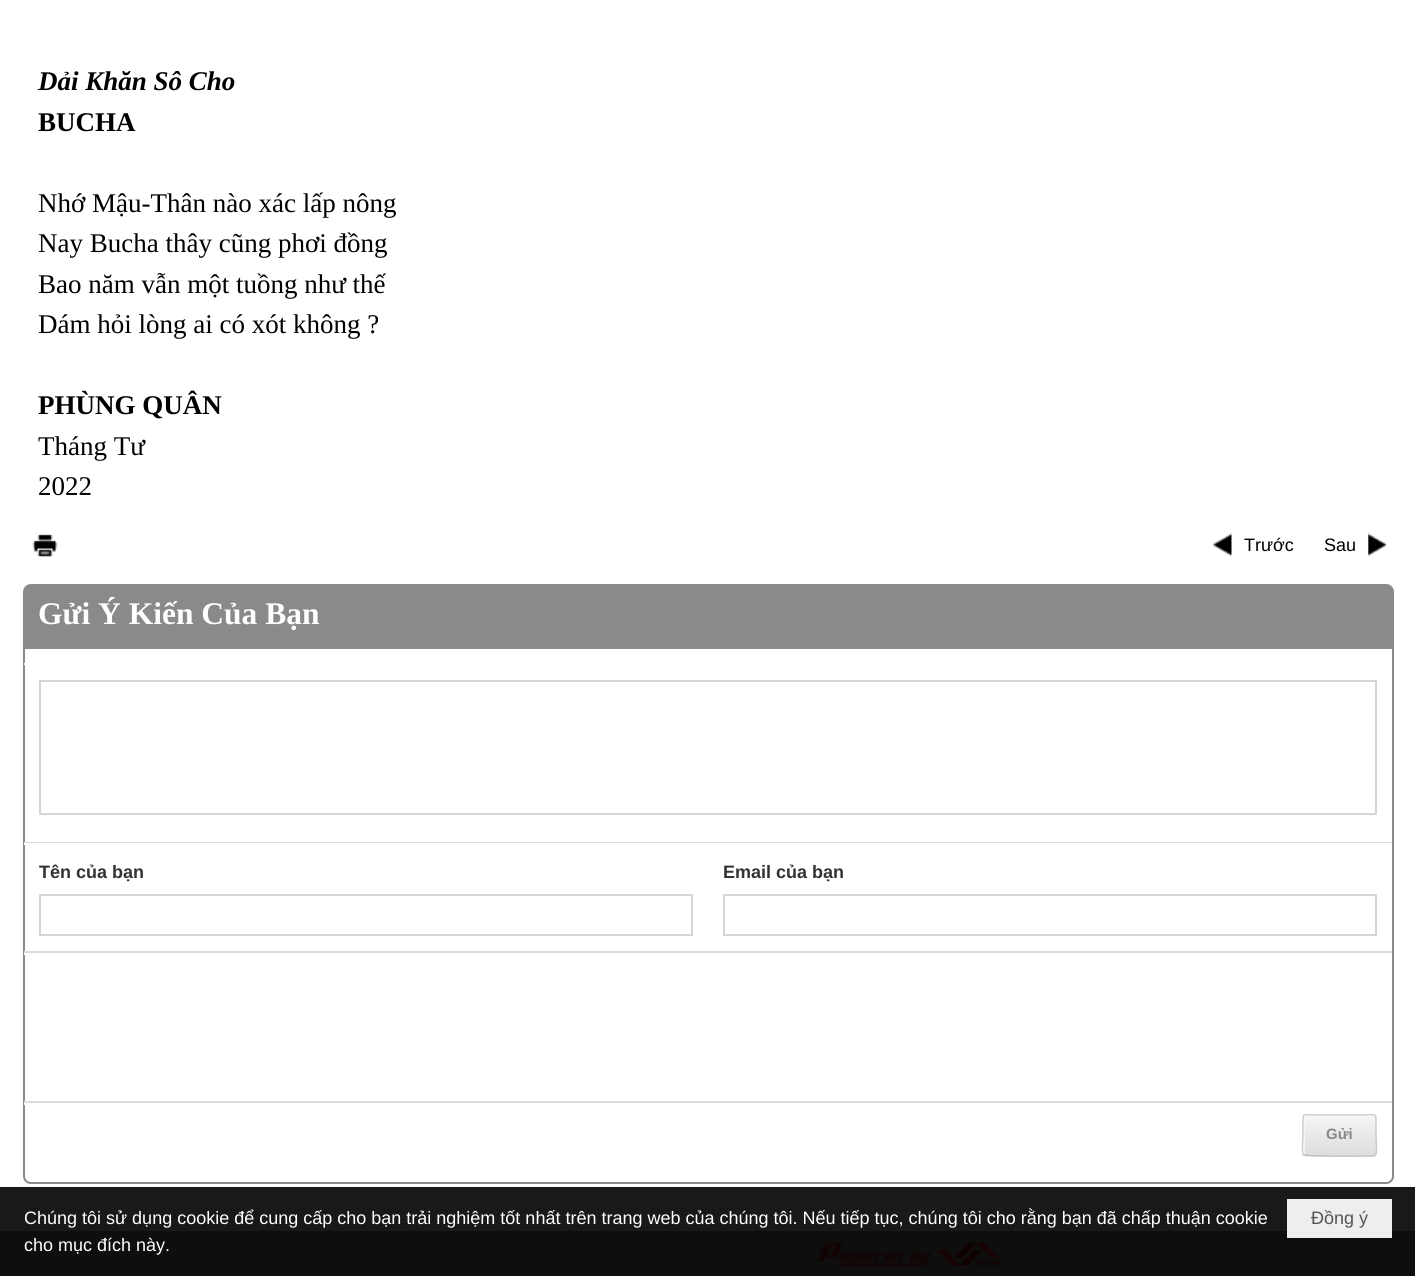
import math
import cairo

surface = cairo.ImageSurface(cairo.FORMAT_RGB24, 1415, 1276)
cr = cairo.Context(surface)
options = cairo.FontOptions()
options.set_hint_metrics(cairo.HINT_METRICS_OFF)
options.set_hint_style(cairo.HINT_STYLE_NONE)
cr.set_font_options(options)
cr.set_miter_limit(4)


def rgb(code):
    cr.set_source_rgb(*(v / 255 for v in bytes.fromhex(code[-6:])))


def rrect(x, y, w, h, r):
    cr.new_sub_path()
    for i, (u, v) in enumerate([(x + w - r, y + h - r), (x + r, y + h - r), (x + r, y + r), (x + w - r, y + r)]):
        cr.arc(u, v, r, i * math.pi / 2, (i + 1) * math.pi / 2)
    cr.close_path()


def image(path, x, y, w, h):
    cr.save()
    cr.set_source_surface(cairo.ImageSurface.create_from_png(path), x, y)
    cr.rectangle(x, y, w, h)
    cr.fill()
    cr.restore()


rgb("#ffffff")
cr.paint()
rgb("#191919")
cr.rectangle(0, 1187, 1415, 44)
cr.fill()
image("img/1.png", 32, 534, 26, 24)
image("img/2.png", 1213, 533, 19, 24)
image("img/3.png", 1368, 533, 18, 24)
rgb("#898a8c")
cr.new_path()
cr.move_to(31, 584)
cr.line_to(1386, 584)
cr.curve_to(1390.5, 584, 1394, 587.5, 1394, 592)
cr.line_to(1394, 647)
cr.line_to(23, 647)
cr.line_to(23, 592)
cr.curve_to(23, 587.5, 26.5, 584, 31, 584)
cr.close_path()
cr.fill()
cr.new_path()
cr.move_to(24, 648)
cr.line_to(1393, 648)
cr.line_to(1393, 1176)
cr.curve_to(1393, 1180, 1390, 1183, 1386, 1183)
cr.line_to(31, 1183)
cr.curve_to(27, 1183, 24, 1180, 24, 1176)
cr.close_path()
cr.stroke()
rgb("#ffffff")
cr.rectangle(24, 663, 1, 2)
cr.fill()
rgb("#dddddd")
cr.rectangle(24, 842, 1368, 1)
cr.fill()
cr.rectangle(40, 681, 1336, 133)
rgb("#d5d5d5")
cr.stroke()
rgb("#ffffff")
cr.rectangle(24, 843, 1, 2)
cr.fill()
rgb("#dddddd")
cr.rectangle(24, 951, 1368, 2)
cr.fill()
cr.rectangle(40, 895, 652, 40)
rgb("#d5d5d5")
cr.stroke()
cr.rectangle(724, 895, 652, 40)
cr.stroke()
for x, y, w, h, color in [
    (24, 953, 1, 2, "#ffffff"),
    (24, 1101, 1368, 2, "#dddddd"),
    (24, 1103, 1, 2, "#ffffff"),
]:
    rgb(color)
    cr.rectangle(x, y, w, h)
    cr.fill()
gradient = cairo.LinearGradient(1340, 1116, 1340, 1155)
gradient.add_color_stop_rgba(0, 0.961, 0.961, 0.961, 1)
gradient.add_color_stop_rgba(1, 0.867, 0.867, 0.867, 1)
cr.set_source(gradient)
rrect(1304, 1116, 72, 39, 1.5)
cr.fill()
rgb("#f5f5f5")
cr.new_path()
cr.move_to(1306, 1118)
cr.line_to(1376, 1118)
cr.curve_to(1376, 1117, 1375, 1116, 1374, 1116)
cr.line_to(1306, 1116)
cr.curve_to(1305, 1116, 1304, 1117, 1304, 1118)
cr.line_to(1304, 1154)
cr.curve_to(1304, 1154, 1304, 1155, 1305, 1155)
cr.line_to(1305, 1119)
cr.close_path()
cr.fill()
cr.new_path()
cr.move_to(1375.5, 1155)
cr.line_to(1374, 1156)
cr.line_to(1362.5, 1156)
cr.curve_to(1356, 1156, 1305.5, 1156.5, 1303.5, 1155)
rgb("#bbbbbb")
cr.set_line_width(1.5)
cr.stroke()
cr.new_path()
cr.move_to(1303.5, 1155)
cr.curve_to(1301.5, 1153.5, 1303, 1138.5, 1303, 1135.5)
cr.line_to(1303, 1123.5)
cr.curve_to(1303, 1112, 1303, 1115, 1316.5, 1115)
cr.line_to(1362.5, 1115)
cr.curve_to(1376, 1115, 1376, 1112, 1376, 1123.5)
cr.line_to(1376, 1135.5)
cr.curve_to(1376, 1138.5, 1377.5, 1153.5, 1375.5, 1155)
rgb("#cccccc")
cr.stroke()
rgb("#0e0e0e")
cr.rectangle(0, 1231, 1415, 45)
cr.fill()
image("img/4.png", 816, 1242, 185, 24)
rgb("#eeeeee")
cr.rectangle(1287, 1199, 105, 39)
cr.fill()
cr.select_font_face("Liberation Serif", cairo.FONT_SLANT_ITALIC, cairo.FONT_WEIGHT_BOLD)
cr.set_font_size(27)
rgb("#000000")
cr.move_to(38, 90)
cr.show_text("Dải Khăn Sô Cho")
cr.select_font_face("Liberation Serif", cairo.FONT_SLANT_NORMAL, cairo.FONT_WEIGHT_BOLD)
cr.move_to(38, 131)
cr.show_text("BUCHA")
cr.select_font_face("Liberation Serif")
for x, y, s in [
    (38, 212, "Nhớ Mậu-Thân nào xác lấp nông"),
    (38, 252, "Nay Bucha thây cũng phơi đồng"),
    (38, 293, "Bao năm vẫn một tuồng như thế"),
    (38, 333, "Dám hỏi lòng ai có xót không ?"),
]:
    cr.move_to(x, y)
    cr.show_text(s)
cr.select_font_face("Liberation Serif", cairo.FONT_SLANT_NORMAL, cairo.FONT_WEIGHT_BOLD)
cr.move_to(38, 414)
cr.show_text("PHÙNG QUÂN")
cr.select_font_face("Liberation Serif")
cr.move_to(38, 455)
cr.show_text("Tháng Tư")
cr.move_to(38, 495)
cr.show_text("2022")
cr.select_font_face("Liberation Sans")
cr.set_font_size(18)
cr.move_to(1244, 551)
cr.show_text("Trước")
cr.move_to(1324, 551)
cr.show_text("Sau")
cr.select_font_face("Liberation Serif", cairo.FONT_SLANT_NORMAL, cairo.FONT_WEIGHT_BOLD)
cr.set_font_size(31.5)
rgb("#ffffff")
cr.move_to(38, 624)
cr.show_text("Gửi Ý Kiến Của Bạn")
cr.select_font_face("Liberation Sans", cairo.FONT_SLANT_NORMAL, cairo.FONT_WEIGHT_BOLD)
cr.set_font_size(18)
rgb("#333333")
cr.move_to(39, 878)
cr.show_text("Tên của bạn")
cr.move_to(723, 878)
cr.show_text("Email của bạn")
cr.set_font_size(15)
rgb("#888888")
cr.move_to(1326, 1139)
cr.show_text("Gửi")
cr.select_font_face("Liberation Sans")
cr.set_font_size(18)
rgb("#ffffff")
cr.move_to(24, 1224)
cr.show_text("Chúng tôi sử dụng cookie để cung cấp cho bạn trải nghiệm tốt nhất trên trang web của chúng tôi. Nếu tiếp tục, chúng tôi cho rằng bạn đã chấp thuận cookie")
cr.move_to(24, 1251)
cr.show_text("cho mục đích này.")
rgb("#555555")
cr.move_to(1311, 1224)
cr.show_text("Đồng ý")
surface.write_to_png("page.png")
